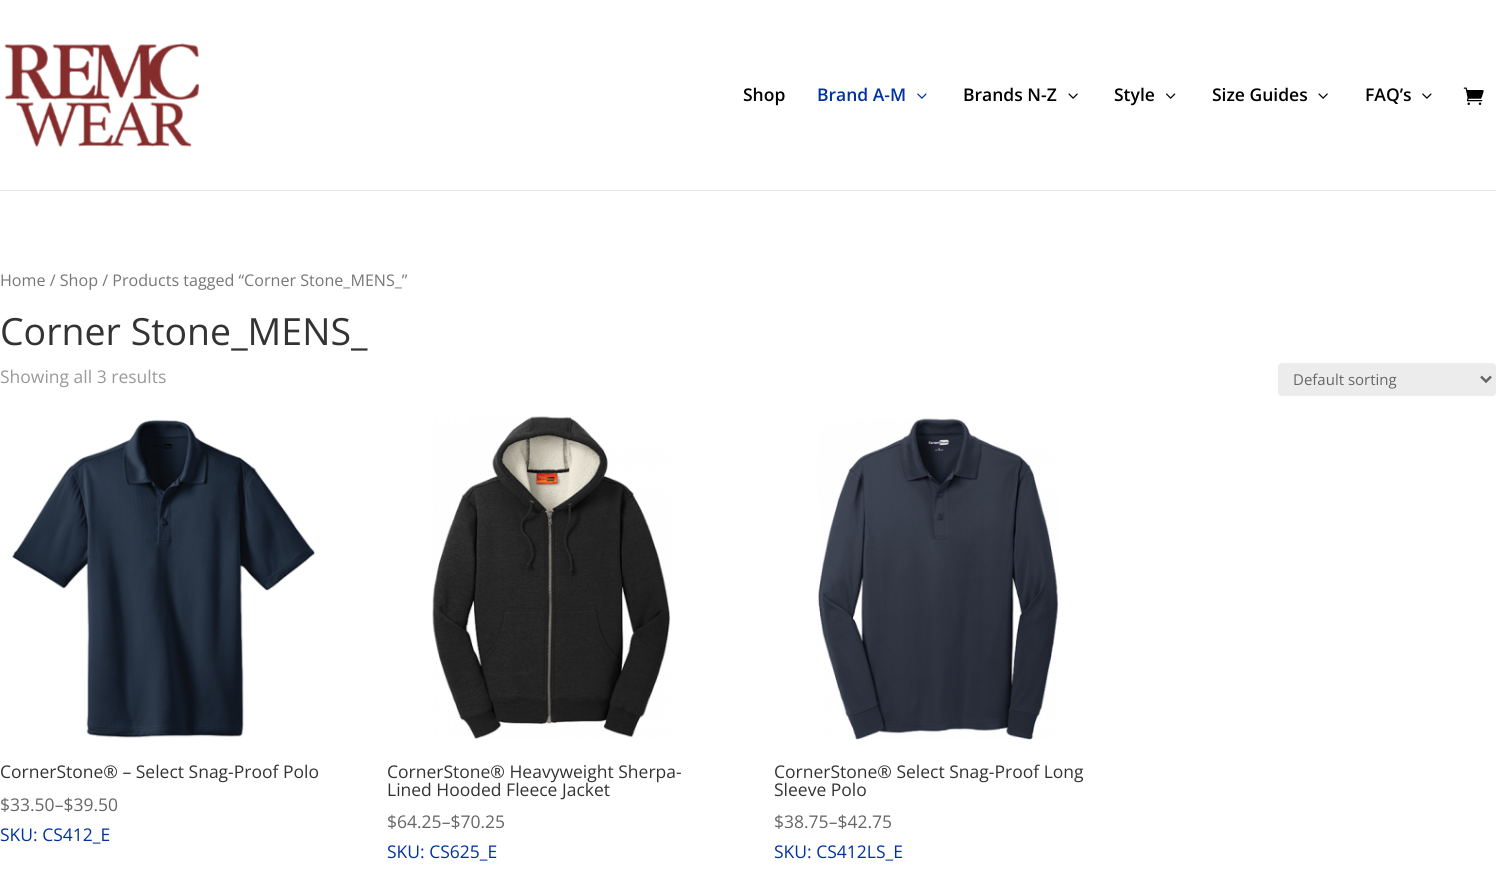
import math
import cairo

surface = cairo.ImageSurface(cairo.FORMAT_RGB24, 1496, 884)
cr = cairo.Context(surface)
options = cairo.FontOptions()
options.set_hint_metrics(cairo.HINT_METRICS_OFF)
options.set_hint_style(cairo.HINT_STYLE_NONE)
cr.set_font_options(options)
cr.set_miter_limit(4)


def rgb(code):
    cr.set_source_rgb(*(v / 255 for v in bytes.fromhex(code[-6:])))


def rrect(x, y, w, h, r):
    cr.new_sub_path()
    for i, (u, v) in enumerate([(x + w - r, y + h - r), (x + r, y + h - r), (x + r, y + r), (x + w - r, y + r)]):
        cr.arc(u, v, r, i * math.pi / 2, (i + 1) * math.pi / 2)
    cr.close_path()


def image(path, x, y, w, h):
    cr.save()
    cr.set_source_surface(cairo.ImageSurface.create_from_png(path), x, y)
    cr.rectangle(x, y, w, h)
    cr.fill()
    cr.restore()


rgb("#ffffff")
cr.paint()
rgb("#e6e6e6")
cr.rectangle(0, 190, 1496, 1)
cr.fill()
image("img/1.png", 4, 43, 195, 104)
image("img/2.png", 917, 93, 10, 6)
image("img/3.png", 1068, 93, 10, 6)
image("img/4.png", 1166, 93, 10, 6)
image("img/3.png", 1318, 93, 10, 6)
image("img/5.png", 1422, 93, 10, 6)
image("img/6.png", 1463, 87, 21, 18)
rgb("#ececec")
rrect(1278, 363, 218, 33, 4)
cr.fill()
cr.new_path()
cr.move_to(1481, 376.5)
cr.line_to(1486, 381.5)
cr.line_to(1491, 376.5)
rgb("#666666")
cr.set_line_width(2.5)
cr.stroke()
image("img/7.png", 12, 419, 303, 319)
image("img/8.png", 432, 416, 239, 323)
image("img/9.png", 818, 418, 241, 322)
cr.select_font_face("Open Sans SemiBold")
cr.set_font_size(17.5)
rgb("#000000")
cr.move_to(743, 101)
cr.show_text("Shop")
rgb("#0032a0")
cr.move_to(817, 101)
cr.show_text("Brand A-M")
rgb("#000000")
for x, y, s in [
    (963, 101, "Brands N-Z"),
    (1114, 101, "Style"),
    (1212, 101, "Size Guides"),
    (1365, 101, "FAQ’s"),
]:
    cr.move_to(x, y)
    cr.show_text(s)
cr.select_font_face("Open Sans")
cr.set_font_size(16.1)
rgb("#767676")
cr.move_to(0, 286)
cr.show_text("Home / Shop / Products tagged “Corner Stone_MENS_”")
cr.set_font_size(37.5)
rgb("#333333")
cr.move_to(0, 345)
cr.show_text("Corner Stone_MENS_")
cr.set_font_size(17.5)
rgb("#999999")
cr.move_to(0, 383)
cr.show_text("Showing all 3 results")
cr.set_font_size(15)
rgb("#666666")
cr.move_to(1293, 385)
cr.show_text("Default sorting")
cr.set_font_size(17.5)
rgb("#333333")
cr.move_to(0, 778)
cr.show_text("CornerStone® – Select Snag-Proof Polo")
rgb("#666666")
cr.move_to(0, 811)
cr.show_text("$33.50–$39.50")
rgb("#0032a0")
cr.move_to(0, 841)
cr.show_text("SKU: CS412_E")
rgb("#333333")
cr.move_to(387, 778)
cr.show_text("CornerStone® Heavyweight Sherpa-")
cr.move_to(387, 796)
cr.show_text("Lined Hooded Fleece Jacket")
rgb("#666666")
cr.move_to(387, 828)
cr.show_text("$64.25–$70.25")
rgb("#0032a0")
cr.move_to(387, 858)
cr.show_text("SKU: CS625_E")
rgb("#333333")
cr.move_to(774, 778)
cr.show_text("CornerStone® Select Snag-Proof Long")
cr.move_to(774, 796)
cr.show_text("Sleeve Polo")
rgb("#666666")
cr.move_to(774, 828)
cr.show_text("$38.75–$42.75")
rgb("#0032a0")
cr.move_to(774, 858)
cr.show_text("SKU: CS412LS_E")
surface.write_to_png("page.png")
